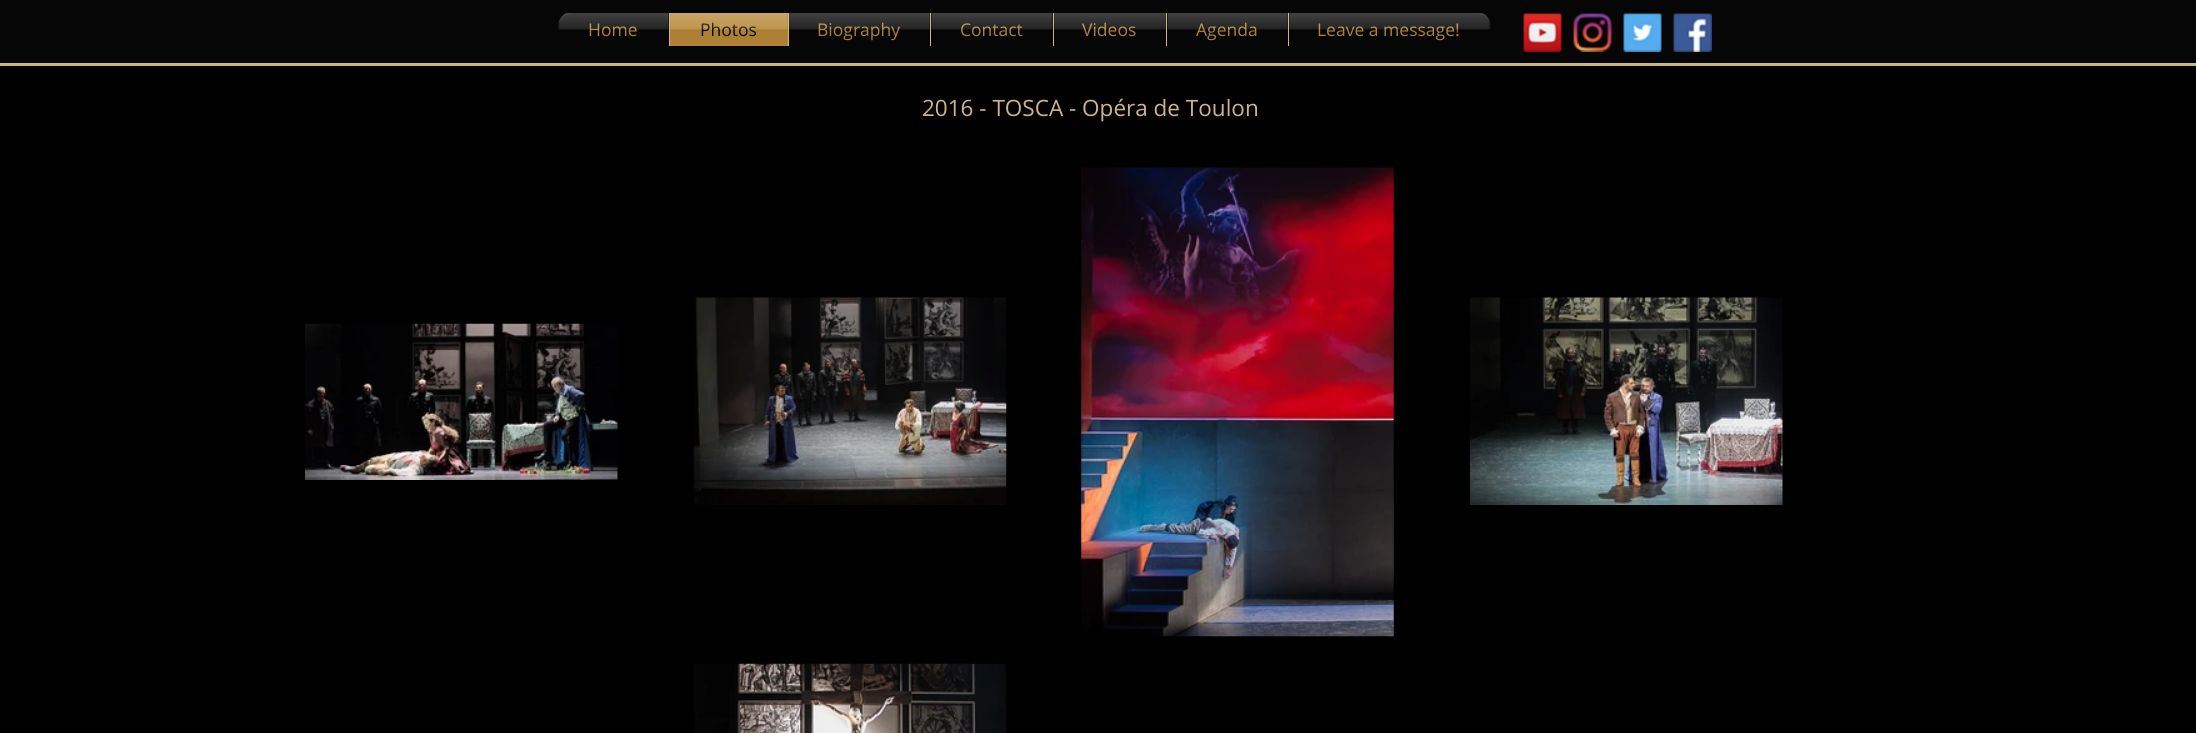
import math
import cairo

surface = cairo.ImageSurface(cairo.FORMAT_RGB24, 2196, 733)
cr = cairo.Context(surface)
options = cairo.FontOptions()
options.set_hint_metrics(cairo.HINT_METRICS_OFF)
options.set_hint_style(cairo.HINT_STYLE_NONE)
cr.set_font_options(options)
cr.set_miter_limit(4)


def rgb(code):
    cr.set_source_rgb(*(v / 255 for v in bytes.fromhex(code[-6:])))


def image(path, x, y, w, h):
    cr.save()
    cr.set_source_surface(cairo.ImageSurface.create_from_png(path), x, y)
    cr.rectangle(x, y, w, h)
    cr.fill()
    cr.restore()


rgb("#000000")
cr.paint()
rgb("#070606")
cr.rectangle(0, 0, 2196, 63)
cr.fill()
rgb("#cfb486")
cr.rectangle(0, 63, 2196, 3)
cr.fill()
image("img/1.png", 558, 13, 932, 17)
rgb("#070606")
cr.new_path()
cr.move_to(572, 13)
cr.line_to(669, 13)
cr.line_to(669, 46)
cr.line_to(572, 46)
cr.curve_to(565, 46, 559, 40, 559, 33)
cr.line_to(559, 26)
cr.curve_to(559, 19, 565, 13, 572, 13)
cr.close_path()
cr.fill()
for x, y, w, h, color in [
    (670, 13, 118, 33, "#b78837"),
    (669, 13, 1, 33, "#cfb486"),
    (789, 13, 141, 17, "#070606"),
    (788, 13, 1, 33, "#cfb486"),
    (931, 13, 122, 17, "#070606"),
    (930, 13, 1, 33, "#cfb486"),
    (1054, 13, 112, 17, "#070606"),
    (1053, 13, 1, 33, "#cfb486"),
    (1167, 13, 121, 17, "#070606"),
    (1166, 13, 1, 33, "#cfb486"),
]:
    rgb(color)
    cr.rectangle(x, y, w, h)
    cr.fill()
rgb("#070606")
cr.new_path()
cr.move_to(1288, 13)
cr.line_to(1477, 13)
cr.curve_to(1484, 13, 1490, 19, 1490, 26)
cr.line_to(1490, 33)
cr.curve_to(1490, 40, 1484, 46, 1477, 46)
cr.line_to(1288, 46)
cr.close_path()
cr.fill()
rgb("#cfb486")
cr.rectangle(1288, 13, 1, 33)
cr.fill()
image("img/9.png", 1523, 13, 39, 39)
image("img/10.png", 1573, 13, 39, 39)
image("img/11.png", 1623, 13, 39, 39)
image("img/12.png", 1673, 13, 39, 39)
image("img/13.png", 305, 323, 313, 157)
image("img/14.png", 693, 297, 314, 208)
image("img/15.png", 1081, 167, 313, 470)
image("img/16.png", 1470, 297, 313, 208)
image("img/17.png", 694, 663, 313, 70)
cr.select_font_face("Open Sans")
cr.set_font_size(17.5)
rgb("#b78837")
cr.move_to(588, 36)
cr.show_text("Home")
image("img/2.png", 558, 13, 111, 23)
rgb("#070606")
cr.move_to(700, 36)
cr.show_text("Photos")
image("img/3.png", 669, 13, 119, 33)
rgb("#b78837")
cr.move_to(817, 36)
cr.show_text("Biography")
image("img/4.png", 788, 13, 142, 27)
cr.move_to(960, 36)
cr.show_text("Contact")
image("img/5.png", 931, 13, 122, 23)
cr.move_to(1082, 36)
cr.show_text("Videos")
image("img/6.png", 1053, 13, 113, 27)
cr.move_to(1196, 36)
cr.show_text("Agenda")
image("img/7.png", 1167, 13, 121, 27)
cr.move_to(1317, 36)
cr.show_text("Leave a message!")
image("img/8.png", 1288, 13, 203, 27)
cr.set_font_size(22.5)
rgb("#cfb486")
cr.move_to(922, 116)
cr.show_text("2016 - TOSCA - Opéra de Toulon")
surface.write_to_png("page.png")
